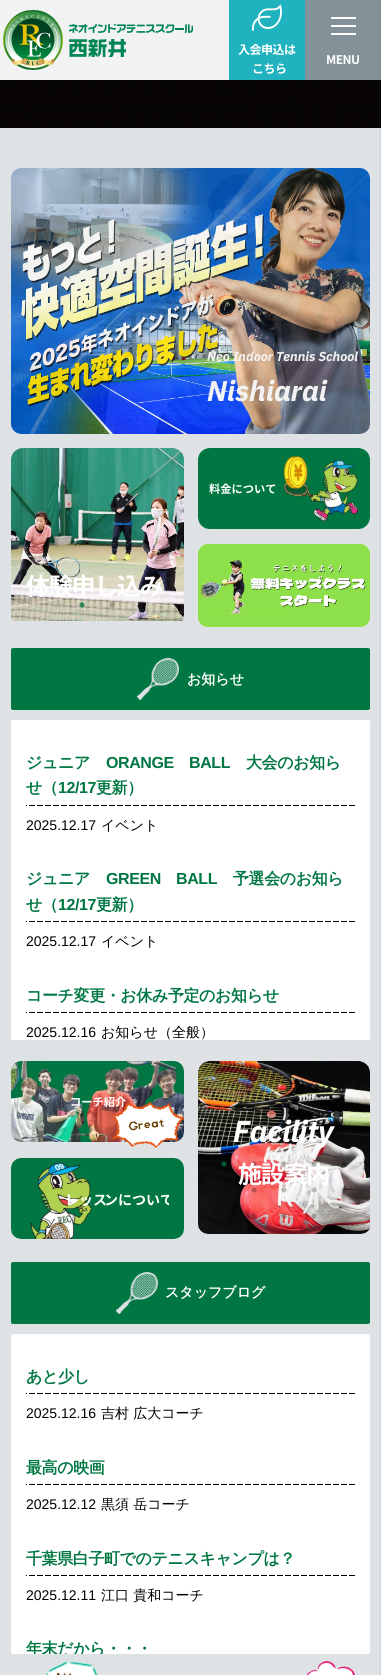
import math
import cairo

surface = cairo.ImageSurface(cairo.FORMAT_RGB24, 381, 1675)
cr = cairo.Context(surface)
options = cairo.FontOptions()
options.set_hint_metrics(cairo.HINT_METRICS_OFF)
options.set_hint_style(cairo.HINT_STYLE_NONE)
cr.set_font_options(options)
cr.set_miter_limit(4)


def rgb(code):
    cr.set_source_rgb(*(v / 255 for v in bytes.fromhex(code[-6:])))


def tracked(x, y, s, letter, word):
    cr.move_to(x, y)
    for ch in s:
        cr.show_text(ch)
        cr.rel_move_to(letter + word * (ch == ' '), 0)


def rrect(x, y, w, h, r):
    cr.new_sub_path()
    for i, (u, v) in enumerate([(x + w - r, y + h - r), (x + r, y + h - r), (x + r, y + r), (x + w - r, y + r)]):
        cr.arc(u, v, r, i * math.pi / 2, (i + 1) * math.pi / 2)
    cr.close_path()


def soft_shadow(x, y, w, h, r, blur, alpha):
    cr.push_group_with_content(cairo.CONTENT_ALPHA)
    cr.set_operator(cairo.OPERATOR_SOURCE)
    for i in range(15, -16, -2):
        e = blur * i / 6
        if min(w, h) + 2 * e > 0:
            cr.set_source_rgba(0, 0, 0, alpha * math.erfc((i - 1) / 8.5) / 2)
            rrect(x - e, y - e, w + 2 * e, h + 2 * e, max(0, min(r + e + blur * .6, min(w, h) / 2 + e)))
            cr.fill()
    cr.mask(cr.pop_group())


def image(path, x, y, w, h):
    cr.save()
    cr.set_source_surface(cairo.ImageSurface.create_from_png(path), x, y)
    cr.rectangle(x, y, w, h)
    cr.fill()
    cr.restore()


rgb("#f2f2f2")
cr.paint()
image("img/1.png", 3, 10, 60, 60)
image("img/2.png", 69, 24, 124, 9)
image("img/3.png", 69, 39, 57, 18)
rgb("#20b3bf")
cr.rectangle(229, 0, 76, 80)
cr.fill()
image("img/4.png", 252, 4, 30, 27)
for x, y, w, h, color in [
    (305, 0, 76, 80, "#839298"),
    (331, 17, 25, 2, "#ffffff"),
    (331, 33, 25, 2, "#ffffff"),
    (331, 25, 25, 2, "#ffffff"),
    (0, 80, 381, 48, "#000000"),
]:
    rgb(color)
    cr.rectangle(x, y, w, h)
    cr.fill()
image("img/5.png", 0, 80, 381, 48)
rgb("#dee2e4")
cr.rectangle(0, 128, 381, 1547)
cr.fill()
rgb("#000000")
soft_shadow(381, 0, 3, 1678, 0, 1, 0.15)
image("img/6.png", 11, 168, 359, 266)
image("img/7.png", 143, 407, 6, 6)
image("img/8.png", 173, 407, 6, 6)
image("img/9.png", 203, 407, 6, 6)
image("img/10.png", 233, 407, 6, 6)
image("img/11.png", 11, 168, 359, 266)
image("img/12.png", 198, 448, 172, 81)
image("img/13.png", 11, 448, 173, 173)
image("img/14.png", 79, 602, 6, 6)
image("img/15.png", 109, 602, 6, 6)
rgb("#8ee04a")
rrect(198, 544, 172, 83, 10)
cr.fill()
image("img/16.png", 201, 560, 165, 54)
rgb("#007742")
rrect(11, 648, 359, 62, 2)
cr.fill()
image("img/17.png", 137, 658, 42, 42)
rgb("#ffffff")
rrect(11, 720, 359, 320, 2)
cr.fill()
image("img/18.png", 26, 805, 329, 1)
image("img/18.png", 26, 921, 329, 1)
image("img/18.png", 26, 1012, 329, 1)
image("img/19.png", 11, 1061, 173, 81)
image("img/20.png", 112, 1102, 72, 46)
image("img/21.png", 198, 1061, 172, 173)
image("img/22.png", 221, 1161, 6, 6)
image("img/23.png", 251, 1161, 6, 6)
image("img/24.png", 281, 1161, 6, 6)
image("img/25.png", 311, 1161, 6, 6)
image("img/26.png", 341, 1161, 6, 6)
image("img/27.png", 251, 1187, 6, 6)
image("img/28.png", 281, 1187, 6, 6)
image("img/29.png", 311, 1187, 6, 6)
image("img/30.png", 341, 1187, 6, 6)
image("img/31.png", 251, 1213, 6, 6)
image("img/32.png", 281, 1213, 6, 6)
image("img/33.png", 311, 1213, 6, 6)
image("img/34.png", 11, 1158, 173, 81)
rgb("#007742")
rrect(11, 1262, 359, 62, 2)
cr.fill()
image("img/17.png", 116, 1272, 42, 42)
rgb("#ffffff")
rrect(11, 1334, 359, 320, 2)
cr.fill()
image("img/18.png", 26, 1393, 329, 1)
image("img/18.png", 26, 1484, 329, 1)
image("img/18.png", 26, 1575, 329, 1)
image("img/35.png", 46, 1661, 52, 14)
image("img/36.png", 306, 1661, 49, 14)
cr.select_font_face("Noto Sans JP", cairo.FONT_SLANT_NORMAL, cairo.FONT_WEIGHT_BOLD)
cr.set_font_size(12)
for x, y, s in [
    (238, 54, "入会申込は"),
    (252, 73, "こちら"),
    (326, 64, "MENU"),
]:
    tracked(x, y, s, -0.5, 0)
cr.select_font_face("IBM Plex Sans", cairo.FONT_SLANT_ITALIC, cairo.FONT_WEIGHT_BOLD)
cr.set_font_size(13)
rgb("#f2f2f2")
cr.move_to(207, 361)
cr.show_text("Neo Indoor Tennis School")
cr.set_font_size(28.5)
cr.move_to(207, 401)
cr.show_text("Nishiarai")
cr.select_font_face("Noto Sans JP", cairo.FONT_SLANT_NORMAL, cairo.FONT_WEIGHT_BOLD)
cr.set_font_size(11.25)
rgb("#ffffff")
cr.move_to(209, 493)
cr.show_text("料金について")
cr.set_font_size(24)
tracked(26, 595, "体験申し込み", -1.25, 0)
cr.select_font_face("WenQuanYi Zen Hei", cairo.FONT_SLANT_NORMAL, cairo.FONT_WEIGHT_BOLD)
cr.set_font_size(14)
cr.move_to(187, 684)
cr.show_text("お知らせ")
cr.set_font_size(16)
rgb("#007742")
tracked(26, 768, "ジュニア", -0.4, 0)
cr.select_font_face("Liberation Sans", cairo.FONT_SLANT_NORMAL, cairo.FONT_WEIGHT_BOLD)
tracked(106, 768, "ORANGE", -0.4, 0)
tracked(189, 768, "BALL", -0.4, 0)
cr.select_font_face("WenQuanYi Zen Hei", cairo.FONT_SLANT_NORMAL, cairo.FONT_WEIGHT_BOLD)
tracked(246, 768, "大会のお知ら", -0.4, 0)
tracked(26, 793, "せ（", -0.4, 0)
cr.select_font_face("Liberation Sans", cairo.FONT_SLANT_NORMAL, cairo.FONT_WEIGHT_BOLD)
tracked(58, 793, "12/17", -0.4, 0)
cr.select_font_face("WenQuanYi Zen Hei", cairo.FONT_SLANT_NORMAL, cairo.FONT_WEIGHT_BOLD)
tracked(96, 793, "更新）", -0.4, 0)
cr.select_font_face("Liberation Sans")
cr.set_font_size(14)
rgb("#000000")
cr.move_to(26, 830)
cr.show_text("2025.12.17")
cr.select_font_face("WenQuanYi Zen Hei Medium")
cr.move_to(101, 830)
cr.show_text("イベント")
cr.select_font_face("WenQuanYi Zen Hei", cairo.FONT_SLANT_NORMAL, cairo.FONT_WEIGHT_BOLD)
cr.set_font_size(16)
rgb("#007742")
tracked(26, 884, "ジュニア", -0.4, 0)
cr.select_font_face("Liberation Sans", cairo.FONT_SLANT_NORMAL, cairo.FONT_WEIGHT_BOLD)
tracked(106, 884, "GREEN", -0.4, 0)
tracked(176, 884, "BALL", -0.4, 0)
cr.select_font_face("WenQuanYi Zen Hei", cairo.FONT_SLANT_NORMAL, cairo.FONT_WEIGHT_BOLD)
tracked(233, 884, "予選会のお知ら", -0.4, 0)
tracked(26, 910, "せ（", -0.4, 0)
cr.select_font_face("Liberation Sans", cairo.FONT_SLANT_NORMAL, cairo.FONT_WEIGHT_BOLD)
tracked(58, 910, "12/17", -0.4, 0)
cr.select_font_face("WenQuanYi Zen Hei", cairo.FONT_SLANT_NORMAL, cairo.FONT_WEIGHT_BOLD)
tracked(96, 910, "更新）", -0.4, 0)
cr.select_font_face("Liberation Sans")
cr.set_font_size(14)
rgb("#000000")
cr.move_to(26, 946)
cr.show_text("2025.12.17")
cr.select_font_face("WenQuanYi Zen Hei Medium")
cr.move_to(101, 946)
cr.show_text("イベント")
cr.select_font_face("WenQuanYi Zen Hei", cairo.FONT_SLANT_NORMAL, cairo.FONT_WEIGHT_BOLD)
cr.set_font_size(16)
rgb("#007742")
tracked(26, 1001, "コーチ変更・お休み予定のお知らせ", -0.4, 0)
cr.select_font_face("Liberation Sans")
cr.set_font_size(14)
rgb("#000000")
cr.move_to(26, 1037)
cr.show_text("2025.12.16")
cr.select_font_face("WenQuanYi Zen Hei Medium")
cr.move_to(101, 1037)
cr.show_text("お知らせ（全般）")
cr.select_font_face("Noto Sans JP", cairo.FONT_SLANT_NORMAL, cairo.FONT_WEIGHT_BOLD)
cr.set_font_size(11.25)
rgb("#ffffff")
cr.move_to(70, 1106)
cr.show_text("コーチ紹介")
cr.select_font_face("IBM Plex Sans", cairo.FONT_SLANT_ITALIC, cairo.FONT_WEIGHT_BOLD)
cr.set_font_size(30)
cr.move_to(233, 1142)
cr.show_text("Facility")
cr.select_font_face("Noto Sans JP", cairo.FONT_SLANT_NORMAL, cairo.FONT_WEIGHT_BOLD)
cr.set_font_size(24)
tracked(238, 1183, "施設案内", -1.25, 0)
cr.save()
cr.rectangle(65, 1188, 104, 23)
cr.clip()
cr.set_font_size(14)
cr.move_to(65, 1205)
cr.show_text("レッス")
cr.move_to(104, 1205)
cr.show_text("ンについて")
cr.restore()
cr.select_font_face("WenQuanYi Zen Hei", cairo.FONT_SLANT_NORMAL, cairo.FONT_WEIGHT_BOLD)
cr.set_font_size(14)
cr.move_to(165, 1297)
cr.show_text("スタッフブログ")
cr.set_font_size(16)
rgb("#007742")
tracked(26, 1382, "あと少し", -0.4, 0)
cr.select_font_face("Liberation Sans")
cr.set_font_size(14)
rgb("#000000")
cr.move_to(26, 1418)
cr.show_text("2025.12.16")
cr.select_font_face("WenQuanYi Zen Hei Medium")
cr.move_to(101, 1418)
cr.show_text("吉村 広大コーチ")
cr.select_font_face("WenQuanYi Zen Hei", cairo.FONT_SLANT_NORMAL, cairo.FONT_WEIGHT_BOLD)
cr.set_font_size(16)
rgb("#007742")
tracked(26, 1473, "最高の映画", -0.4, 0)
cr.select_font_face("Liberation Sans")
cr.set_font_size(14)
rgb("#000000")
cr.move_to(26, 1509)
cr.show_text("2025.12.12")
cr.select_font_face("WenQuanYi Zen Hei Medium")
cr.move_to(101, 1509)
cr.show_text("黒須 岳コーチ")
cr.select_font_face("WenQuanYi Zen Hei", cairo.FONT_SLANT_NORMAL, cairo.FONT_WEIGHT_BOLD)
cr.set_font_size(16)
rgb("#007742")
tracked(26, 1564, "千葉県白子町でのテニスキャンプは？", -0.4, 0)
cr.select_font_face("Liberation Sans")
cr.set_font_size(14)
rgb("#000000")
cr.move_to(26, 1600)
cr.show_text("2025.12.11")
cr.select_font_face("WenQuanYi Zen Hei Medium")
cr.move_to(101, 1600)
cr.show_text("江口 貴和コーチ")
cr.save()
rrect(11, 1334, 359, 320, 2)
cr.clip()
cr.select_font_face("WenQuanYi Zen Hei", cairo.FONT_SLANT_NORMAL, cairo.FONT_WEIGHT_BOLD)
cr.set_font_size(16)
rgb("#007742")
tracked(26, 1654, "年末だから・・・", -0.4, 0)
cr.restore()
surface.write_to_png("page.png")
